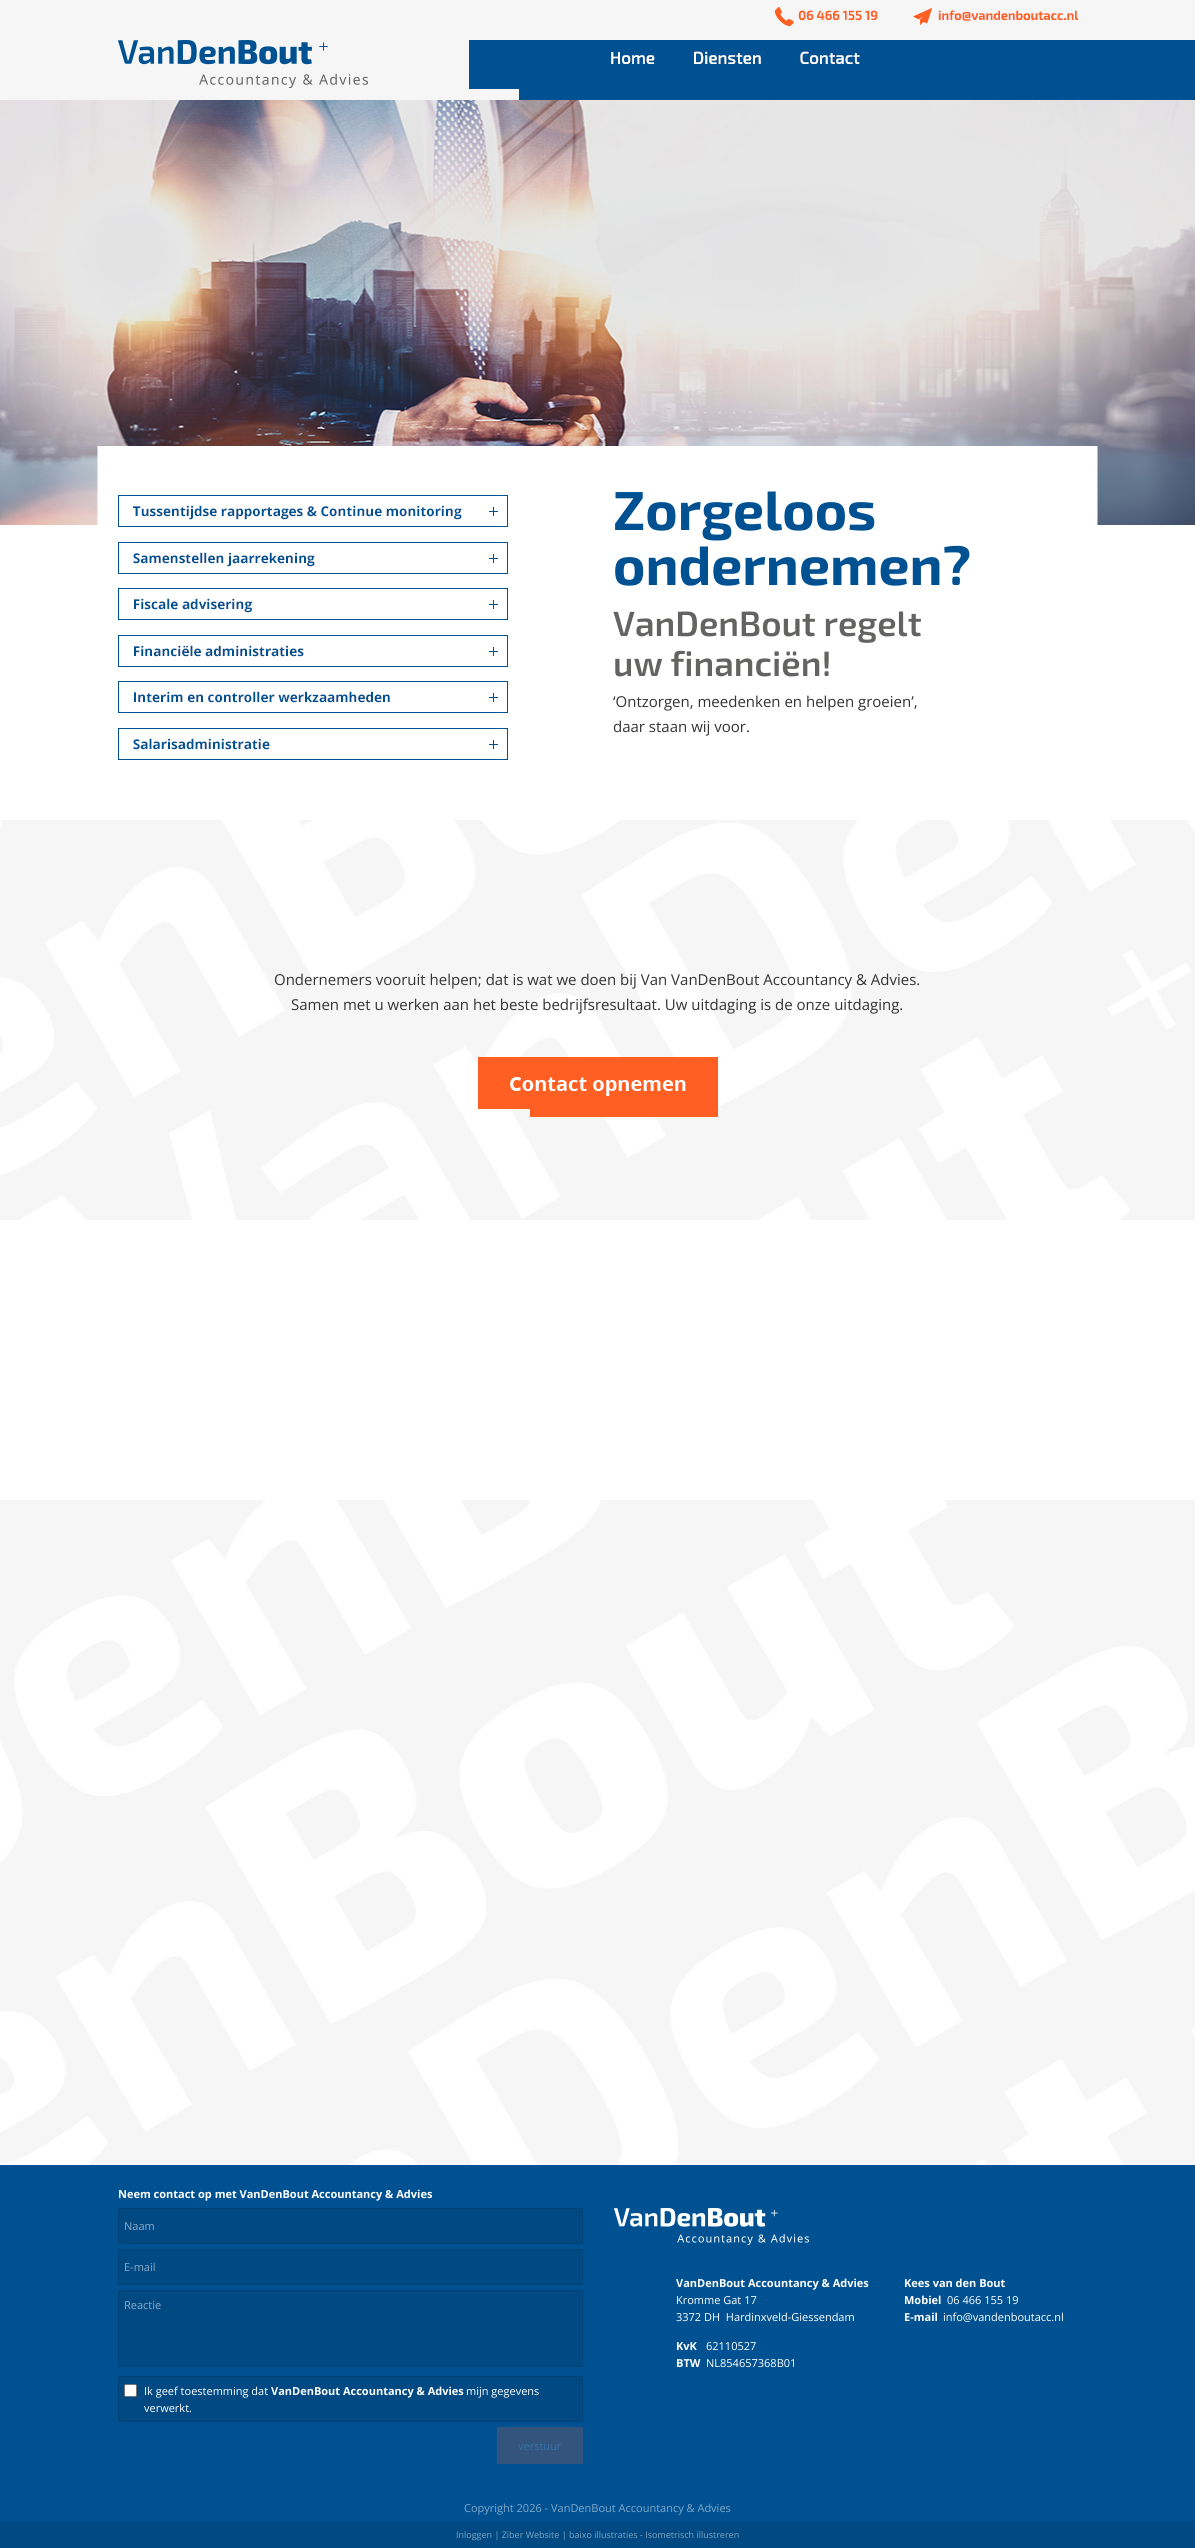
import math
import cairo

surface = cairo.ImageSurface(cairo.FORMAT_RGB24, 1195, 2548)
cr = cairo.Context(surface)
options = cairo.FontOptions()
options.set_hint_metrics(cairo.HINT_METRICS_OFF)
options.set_hint_style(cairo.HINT_STYLE_NONE)
cr.set_font_options(options)
cr.set_miter_limit(4)


def rgb(code):
    cr.set_source_rgb(*(v / 255 for v in bytes.fromhex(code[-6:])))


def rrect(x, y, w, h, r):
    cr.new_sub_path()
    for i, (u, v) in enumerate([(x + w - r, y + h - r), (x + r, y + h - r), (x + r, y + r), (x + w - r, y + r)]):
        cr.arc(u, v, r, i * math.pi / 2, (i + 1) * math.pi / 2)
    cr.close_path()


def image(path, x, y, w, h):
    cr.save()
    cr.set_source_surface(cairo.ImageSurface.create_from_png(path), x, y)
    cr.rectangle(x, y, w, h)
    cr.fill()
    cr.restore()


rgb("#ffffff")
cr.paint()
image("img/1.png", 0, 100, 1195, 425)
image("img/17.png", 0, 820, 1195, 1345)
image("img/2.png", 0, 446, 1195, 1054)
image("img/3.png", 0, 0, 1195, 100)
image("img/4.png", 118, 40, 105, 45)
image("img/5.png", 223, 40, 145, 48)
rgb("#f6f6f6")
cr.rectangle(424, 40, 45, 49)
cr.fill()
image("img/6.png", 611, 52, 44, 12)
image("img/7.png", 694, 7, 87, 57)
image("img/8.png", 781, 10, 97, 54)
image("img/9.png", 913, 8, 166, 17)
cr.rectangle(474, 89, 45, 11)
cr.fill()
image("img/10.png", 118, 495, 390, 32)
image("img/11.png", 118, 542, 390, 32)
image("img/12.png", 118, 588, 390, 32)
image("img/13.png", 118, 635, 390, 32)
image("img/14.png", 118, 681, 390, 32)
image("img/15.png", 118, 728, 390, 32)
image("img/16.png", 478, 1057, 240, 60)
rgb("#005192")
cr.rectangle(0, 2165, 1195, 356)
cr.fill()
rgb("#004983")
cr.rectangle(118.5, 2208.5, 464, 35)
cr.fill_preserve()
rgb("#004276")
cr.set_line_width(1)
cr.stroke()
rgb("#004983")
cr.rectangle(118.5, 2249.5, 464, 35)
cr.fill_preserve()
rgb("#004276")
cr.stroke()
rgb("#004983")
cr.rectangle(118.5, 2290.5, 464, 76)
cr.fill_preserve()
rgb("#004276")
cr.stroke()
rgb("#004983")
cr.rectangle(118.5, 2376.5, 464, 45)
cr.fill_preserve()
rgb("#004276")
cr.stroke()
rgb("#ffffff")
rrect(124.5, 2384.5, 12, 12, 1.5)
cr.fill_preserve()
rgb("#767676")
cr.stroke()
rgb("#33547c")
cr.rectangle(497, 2427, 86, 37)
cr.fill()
image("img/18.png", 614, 2208, 195, 37)
rgb("#004983")
cr.rectangle(0, 2521, 1195, 27)
cr.fill()
cr.select_font_face("Exo 2", cairo.FONT_SLANT_NORMAL, cairo.FONT_WEIGHT_BOLD)
cr.set_font_size(55)
rgb("#005192")
cr.move_to(613, 530)
cr.show_text("Zorgeloos")
cr.move_to(613, 585)
cr.show_text("ondernemen?")
cr.select_font_face("Exo 2 SemiBold")
cr.set_font_size(35)
rgb("#636362")
cr.move_to(613, 636)
cr.show_text("VanDenBout regelt")
cr.move_to(613, 676)
cr.show_text("uw financiën!")
cr.select_font_face("Open Sans")
cr.set_font_size(15)
rgb("#333333")
for x, y, s in [
    (613, 707, "‘Ontzorgen, meedenken en helpen groeien’,"),
    (613, 732, "daar staan wij voor."),
    (274, 985, "Ondernemers vooruit helpen; dat is wat we doen bij Van VanDenBout Accountancy & Advies."),
    (291, 1010, "Samen met u werken aan het beste bedrijfsresultaat. Uw uitdaging is de onze uitdaging."),
]:
    cr.move_to(x, y)
    cr.show_text(s)
cr.select_font_face("Open Sans", cairo.FONT_SLANT_NORMAL, cairo.FONT_WEIGHT_BOLD)
cr.set_font_size(11)
rgb("#ffffff")
cr.move_to(118, 2198)
cr.show_text("Neem contact op met VanDenBout Accountancy & Advies")
cr.select_font_face("Open Sans")
rgb("#8aabc6")
for x, y, s in [
    (124, 2230, "Naam"),
    (124, 2271, "E-mail"),
    (124, 2309, "Reactie"),
]:
    cr.move_to(x, y)
    cr.show_text(s)
rgb("#ffffff")
cr.move_to(144, 2395)
cr.show_text("Ik geef toestemming dat")
cr.select_font_face("Open Sans", cairo.FONT_SLANT_NORMAL, cairo.FONT_WEIGHT_BOLD)
cr.move_to(271, 2395)
cr.show_text("VanDenBout Accountancy & Advies")
cr.select_font_face("Open Sans")
cr.move_to(466, 2395)
cr.show_text("mijn gegevens")
cr.move_to(144, 2412)
cr.show_text("verwerkt.")
rgb("#3374a8")
cr.move_to(518, 2450)
cr.show_text("verstuur")
cr.select_font_face("Open Sans", cairo.FONT_SLANT_NORMAL, cairo.FONT_WEIGHT_BOLD)
rgb("#ffffff")
cr.move_to(676, 2287)
cr.show_text("VanDenBout Accountancy & Advies")
cr.select_font_face("Open Sans")
cr.move_to(676, 2304)
cr.show_text("Kromme Gat 17")
cr.move_to(676, 2321)
cr.show_text("3372 DH  Hardinxveld-Giessendam")
cr.select_font_face("Open Sans", cairo.FONT_SLANT_NORMAL, cairo.FONT_WEIGHT_BOLD)
cr.move_to(904, 2287)
cr.show_text("Kees van den Bout")
cr.move_to(904, 2304)
cr.show_text("Mobiel")
cr.select_font_face("Open Sans")
cr.move_to(947, 2304)
cr.show_text("06 466 155 19")
cr.select_font_face("Open Sans", cairo.FONT_SLANT_NORMAL, cairo.FONT_WEIGHT_BOLD)
cr.move_to(904, 2321)
cr.show_text("E-mail")
cr.select_font_face("Open Sans")
cr.move_to(943, 2321)
cr.show_text("info@vandenboutacc.nl")
cr.select_font_face("Open Sans", cairo.FONT_SLANT_NORMAL, cairo.FONT_WEIGHT_BOLD)
cr.move_to(676, 2350)
cr.show_text("KvK")
cr.move_to(676, 2367)
cr.show_text("BTW")
cr.select_font_face("Open Sans")
cr.move_to(706, 2350)
cr.show_text("62110527")
cr.move_to(706, 2367)
cr.show_text("NL854657368B01")
rgb("#80a8c9")
cr.move_to(464, 2512)
cr.show_text("Copyright 2026 - VanDenBout Accountancy & Advies")
cr.set_font_size(9)
rgb("#80a4c1")
cr.move_to(456, 2538)
cr.show_text("Inloggen | Ziber Website | baixo illustraties - Isometrisch illustreren")
surface.write_to_png("page.png")
